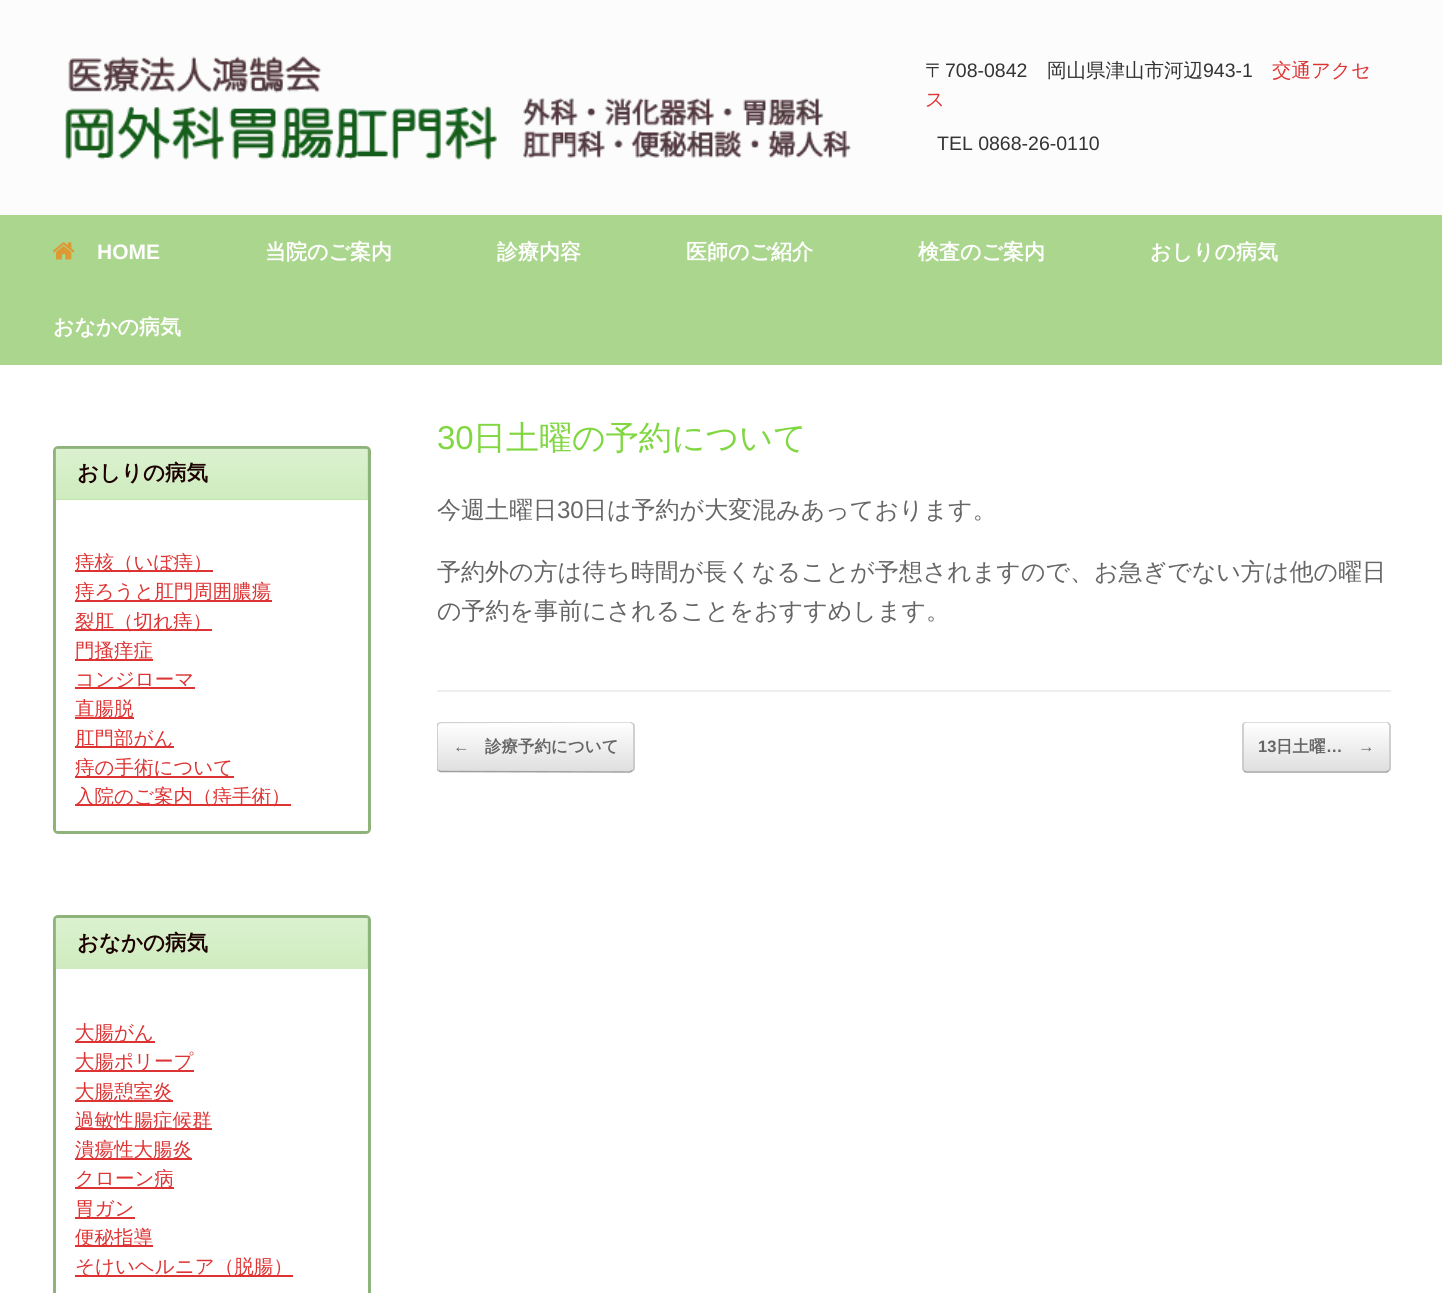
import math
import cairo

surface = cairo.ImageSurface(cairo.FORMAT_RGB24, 1442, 1293)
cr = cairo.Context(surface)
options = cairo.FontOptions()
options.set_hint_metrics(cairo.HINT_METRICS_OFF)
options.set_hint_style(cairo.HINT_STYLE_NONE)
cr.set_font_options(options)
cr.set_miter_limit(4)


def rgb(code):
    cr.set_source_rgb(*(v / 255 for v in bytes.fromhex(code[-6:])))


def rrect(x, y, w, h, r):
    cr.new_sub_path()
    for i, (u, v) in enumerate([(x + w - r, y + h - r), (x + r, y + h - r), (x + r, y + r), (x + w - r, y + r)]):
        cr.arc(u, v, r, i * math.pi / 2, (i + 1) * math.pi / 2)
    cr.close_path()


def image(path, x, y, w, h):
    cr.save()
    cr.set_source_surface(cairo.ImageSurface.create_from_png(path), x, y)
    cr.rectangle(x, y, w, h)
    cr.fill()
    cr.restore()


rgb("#fcfcfc")
cr.paint()
image("img/1.png", 65, 56, 787, 104)
rgb("#abd68d")
cr.rectangle(0, 215, 1442, 150)
cr.fill()
image("img/2.png", 53, 242, 22, 18)
rgb("#ffffff")
cr.rectangle(0, 365, 1442, 928)
cr.fill()
rrect(54.5, 447.5, 315, 385, 3.5)
rgb("#8fb47b")
cr.set_line_width(3)
cr.stroke()
rgb("#c2e7ae")
cr.new_path()
cr.move_to(57.5, 449)
cr.line_to(366.5, 449)
cr.curve_to(367.5, 449, 368, 449.5, 368, 450.5)
cr.line_to(368, 500)
cr.line_to(56, 500)
cr.line_to(56, 450.5)
cr.curve_to(56, 449.5, 56.5, 449, 57.5, 449)
cr.close_path()
cr.fill()
image("img/3.png", 55, 448, 313, 51)
rgb("#ffffff")
cr.new_path()
cr.move_to(56, 500)
cr.line_to(368, 500)
cr.line_to(368, 829.5)
cr.curve_to(368, 830.5, 367.5, 831, 366.5, 831)
cr.line_to(57.5, 831)
cr.curve_to(56.5, 831, 56, 830.5, 56, 829.5)
cr.close_path()
cr.fill()
for x, y, w, h, color in [
    (75, 570, 138, 2, "#dd3333"),
    (75, 600, 197, 2, "#dd3333"),
    (75, 629, 137, 2, "#dd3333"),
    (75, 659, 78, 2, "#dd3333"),
    (75, 687, 120, 2, "#dd3333"),
    (75, 717, 59, 2, "#dd3333"),
    (75, 746, 99, 2, "#dd3333"),
    (75, 776, 159, 2, "#dd3333"),
    (75, 804, 216, 2, "#dd3333"),
]:
    rgb(color)
    cr.rectangle(x, y, w, h)
    cr.fill()
rrect(54.5, 916.5, 315, 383, 3.5)
rgb("#8fb47b")
cr.stroke()
rgb("#c2e7ae")
cr.new_path()
cr.move_to(57.5, 918)
cr.line_to(366.5, 918)
cr.curve_to(367.5, 918, 368, 918.5, 368, 919.5)
cr.line_to(368, 969)
cr.line_to(56, 969)
cr.line_to(56, 919.5)
cr.curve_to(56, 918.5, 56.5, 918, 57.5, 918)
cr.close_path()
cr.fill()
image("img/4.png", 55, 918, 313, 51)
for x, y, w, h, color in [
    (75, 1041, 80, 2, "#dd3333"),
    (75, 1070, 119, 2, "#dd3333"),
    (75, 1100, 98, 2, "#dd3333"),
    (75, 1128, 137, 2, "#dd3333"),
    (75, 1158, 117, 2, "#dd3333"),
    (75, 1187, 99, 2, "#dd3333"),
    (75, 1217, 60, 2, "#dd3333"),
    (75, 1245, 78, 2, "#dd3333"),
    (75, 1275, 218, 2, "#dd3333"),
    (437, 690, 954, 2, "#eeeeee"),
]:
    rgb(color)
    cr.rectangle(x, y, w, h)
    cr.fill()
cr.save()
rrect(437, 722, 198, 51, 5)
cr.clip()
gradient = cairo.LinearGradient(438, 771, 438, 723)
gradient.add_color_stop_rgba(0, 0.875, 0.875, 0.875, 1)
gradient.add_color_stop_rgba(1, 1, 1, 1, 1)
cr.set_source(gradient)
cr.rectangle(437, 723, 198, 48)
cr.fill()
cr.restore()
cr.save()
cr.rectangle(437, 722, 954, 51)
cr.clip()
cr.new_path()
cr.move_to(438.5, 723.5)
cr.line_to(440.5, 722.5)
cr.line_to(598.5, 722)
cr.line_to(630, 722)
cr.line_to(632.5, 723.5)
rgb("#d2d2d2")
cr.set_line_width(1.5)
cr.stroke()
cr.restore()
cr.new_path()
cr.move_to(632.5, 723.5)
cr.curve_to(633.5, 724, 634, 725, 634, 726)
cr.line_to(634, 768)
cr.curve_to(634, 769, 633.5, 770, 632.5, 770.5)
rgb("#c3c3c3")
cr.set_line_width(1.5)
cr.stroke()
cr.new_path()
cr.move_to(632.5, 770.5)
cr.line_to(630, 772)
cr.line_to(440.5, 771.5)
cr.line_to(438.5, 770.5)
rgb("#9f9f9f")
cr.stroke()
cr.save()
cr.rectangle(437, 722, 954, 51)
cr.clip()
cr.new_path()
cr.move_to(438.5, 770.5)
cr.curve_to(437.5, 770, 437, 769, 437, 768)
cr.line_to(437, 726)
cr.curve_to(437, 725, 437.5, 724, 438.5, 723.5)
rgb("#c3c3c3")
cr.stroke()
cr.restore()
cr.save()
rrect(1242, 722, 149, 51, 5)
cr.clip()
gradient = cairo.LinearGradient(1244, 771, 1244, 723)
gradient.add_color_stop_rgba(0, 0.875, 0.875, 0.875, 1)
gradient.add_color_stop_rgba(1, 1, 1, 1, 1)
cr.set_source(gradient)
cr.rectangle(1242, 723, 149, 48)
cr.fill()
cr.restore()
cr.save()
cr.rectangle(437, 722, 954, 51)
cr.clip()
cr.new_path()
cr.move_to(1244, 723.5)
cr.curve_to(1244.5, 722.5, 1245.5, 722, 1246.5, 722)
cr.line_to(1386, 722)
cr.curve_to(1387, 722, 1388, 722.5, 1388.5, 723.5)
rgb("#d2d2d2")
cr.stroke()
cr.restore()
cr.new_path()
cr.move_to(1388.5, 723.5)
cr.curve_to(1389.5, 724, 1390, 725, 1390, 726)
cr.line_to(1390, 768)
cr.curve_to(1390, 769, 1389.5, 770, 1388.5, 770.5)
rgb("#c3c3c3")
cr.stroke()
cr.new_path()
cr.move_to(1388.5, 770.5)
cr.curve_to(1388, 771.5, 1387, 772, 1386, 772)
cr.line_to(1246.5, 772)
cr.curve_to(1245.5, 772, 1244.5, 771.5, 1244, 770.5)
rgb("#9f9f9f")
cr.stroke()
cr.new_path()
cr.move_to(1244, 770.5)
cr.curve_to(1243, 770, 1243, 769, 1243, 768)
cr.line_to(1243, 726)
cr.curve_to(1243, 725, 1243, 724, 1244, 723.5)
rgb("#c3c3c3")
cr.stroke()
cr.select_font_face("WenQuanYi Zen Hei Medium")
cr.set_font_size(19.5)
rgb("#333333")
cr.move_to(925, 77)
cr.show_text("〒")
cr.select_font_face("Liberation Sans")
cr.move_to(945, 77)
cr.show_text("708-0842")
cr.select_font_face("WenQuanYi Zen Hei Medium")
cr.move_to(1047, 77)
cr.show_text("岡山県津山市河辺")
cr.select_font_face("Liberation Sans")
cr.move_to(1203, 77)
cr.show_text("943-1")
cr.select_font_face("WenQuanYi Zen Hei Medium")
rgb("#dd3333")
cr.move_to(1272, 77)
cr.show_text("交通アクセ")
cr.move_to(925, 106)
cr.show_text("ス")
cr.select_font_face("Liberation Sans")
rgb("#333333")
cr.move_to(937, 150)
cr.show_text("TEL 0868-26-0110")
cr.select_font_face("Liberation Sans", cairo.FONT_SLANT_NORMAL, cairo.FONT_WEIGHT_BOLD)
cr.set_font_size(21)
rgb("#ffffff")
cr.move_to(97, 259)
cr.show_text("HOME")
cr.select_font_face("WenQuanYi Zen Hei", cairo.FONT_SLANT_NORMAL, cairo.FONT_WEIGHT_BOLD)
for x, y, s in [
    (265, 259, "当院のご案内"),
    (497, 259, "診療内容"),
    (686, 259, "医師のご紹介"),
    (918, 259, "検査のご案内"),
    (1150, 259, "おしりの病気"),
    (53, 334, "おなかの病気"),
]:
    cr.move_to(x, y)
    cr.show_text(s)
cr.set_font_size(21.5)
rgb("#1c0200")
cr.move_to(77, 480)
cr.show_text("おしりの病気")
cr.select_font_face("WenQuanYi Zen Hei Medium")
cr.set_font_size(19.5)
rgb("#dd3333")
for x, y, s in [
    (75, 569, "痔核（いぼ痔）"),
    (75, 598, "痔ろうと肛門周囲膿瘍"),
    (75, 628, "裂肛（切れ痔）"),
    (75, 657, "門搔痒症"),
    (75, 686, "コンジローマ"),
    (75, 715, "直腸脱"),
    (75, 745, "肛門部がん"),
    (75, 774, "痔の手術について"),
    (75, 803, "入院のご案内（痔手術）"),
]:
    cr.move_to(x, y)
    cr.show_text(s)
cr.select_font_face("WenQuanYi Zen Hei", cairo.FONT_SLANT_NORMAL, cairo.FONT_WEIGHT_BOLD)
cr.set_font_size(21.5)
rgb("#1c0200")
cr.move_to(77, 950)
cr.show_text("おなかの病気")
cr.select_font_face("WenQuanYi Zen Hei Medium")
cr.set_font_size(19.5)
rgb("#dd3333")
for x, y, s in [
    (75, 1039, "大腸がん"),
    (75, 1068, "大腸ポリープ"),
    (75, 1098, "大腸憩室炎"),
    (75, 1127, "過敏性腸症候群"),
    (75, 1156, "潰瘍性大腸炎"),
    (75, 1185, "クローン病"),
    (75, 1215, "胃ガン"),
    (75, 1244, "便秘指導"),
    (75, 1273, "そけいヘルニア（脱腸）"),
]:
    cr.move_to(x, y)
    cr.show_text(s)
cr.select_font_face("Liberation Sans")
cr.set_font_size(33)
rgb("#81d742")
cr.move_to(437, 449)
cr.show_text("30")
cr.select_font_face("WenQuanYi Zen Hei Medium")
cr.move_to(473, 449)
cr.show_text("日土曜の予約について")
cr.set_font_size(24)
rgb("#666666")
cr.move_to(437, 518)
cr.show_text("今週土曜日")
cr.select_font_face("Liberation Sans")
cr.move_to(557, 518)
cr.show_text("30")
cr.select_font_face("WenQuanYi Zen Hei Medium")
for x, y, s in [
    (583, 518, "日は予約が大変混みあっております。"),
    (437, 580, "予約外の方は待ち時間が長くなることが予想されますので、お急ぎでない方は他の曜日"),
    (437, 619, "の予約を事前にされることをおすすめします。"),
]:
    cr.move_to(x, y)
    cr.show_text(s)
cr.select_font_face("Liberation Sans", cairo.FONT_SLANT_NORMAL, cairo.FONT_WEIGHT_BOLD)
cr.set_font_size(16.5)
cr.move_to(453, 752)
cr.show_text("←")
cr.select_font_face("WenQuanYi Zen Hei", cairo.FONT_SLANT_NORMAL, cairo.FONT_WEIGHT_BOLD)
cr.move_to(485, 752)
cr.show_text("診療予約について")
cr.select_font_face("Liberation Sans", cairo.FONT_SLANT_NORMAL, cairo.FONT_WEIGHT_BOLD)
cr.move_to(1258, 752)
cr.show_text("13")
cr.select_font_face("WenQuanYi Zen Hei", cairo.FONT_SLANT_NORMAL, cairo.FONT_WEIGHT_BOLD)
cr.move_to(1276, 752)
cr.show_text("日土曜")
cr.select_font_face("Liberation Sans", cairo.FONT_SLANT_NORMAL, cairo.FONT_WEIGHT_BOLD)
cr.move_to(1326, 752)
cr.show_text("…")
cr.move_to(1358, 752)
cr.show_text("→")
surface.write_to_png("page.png")
